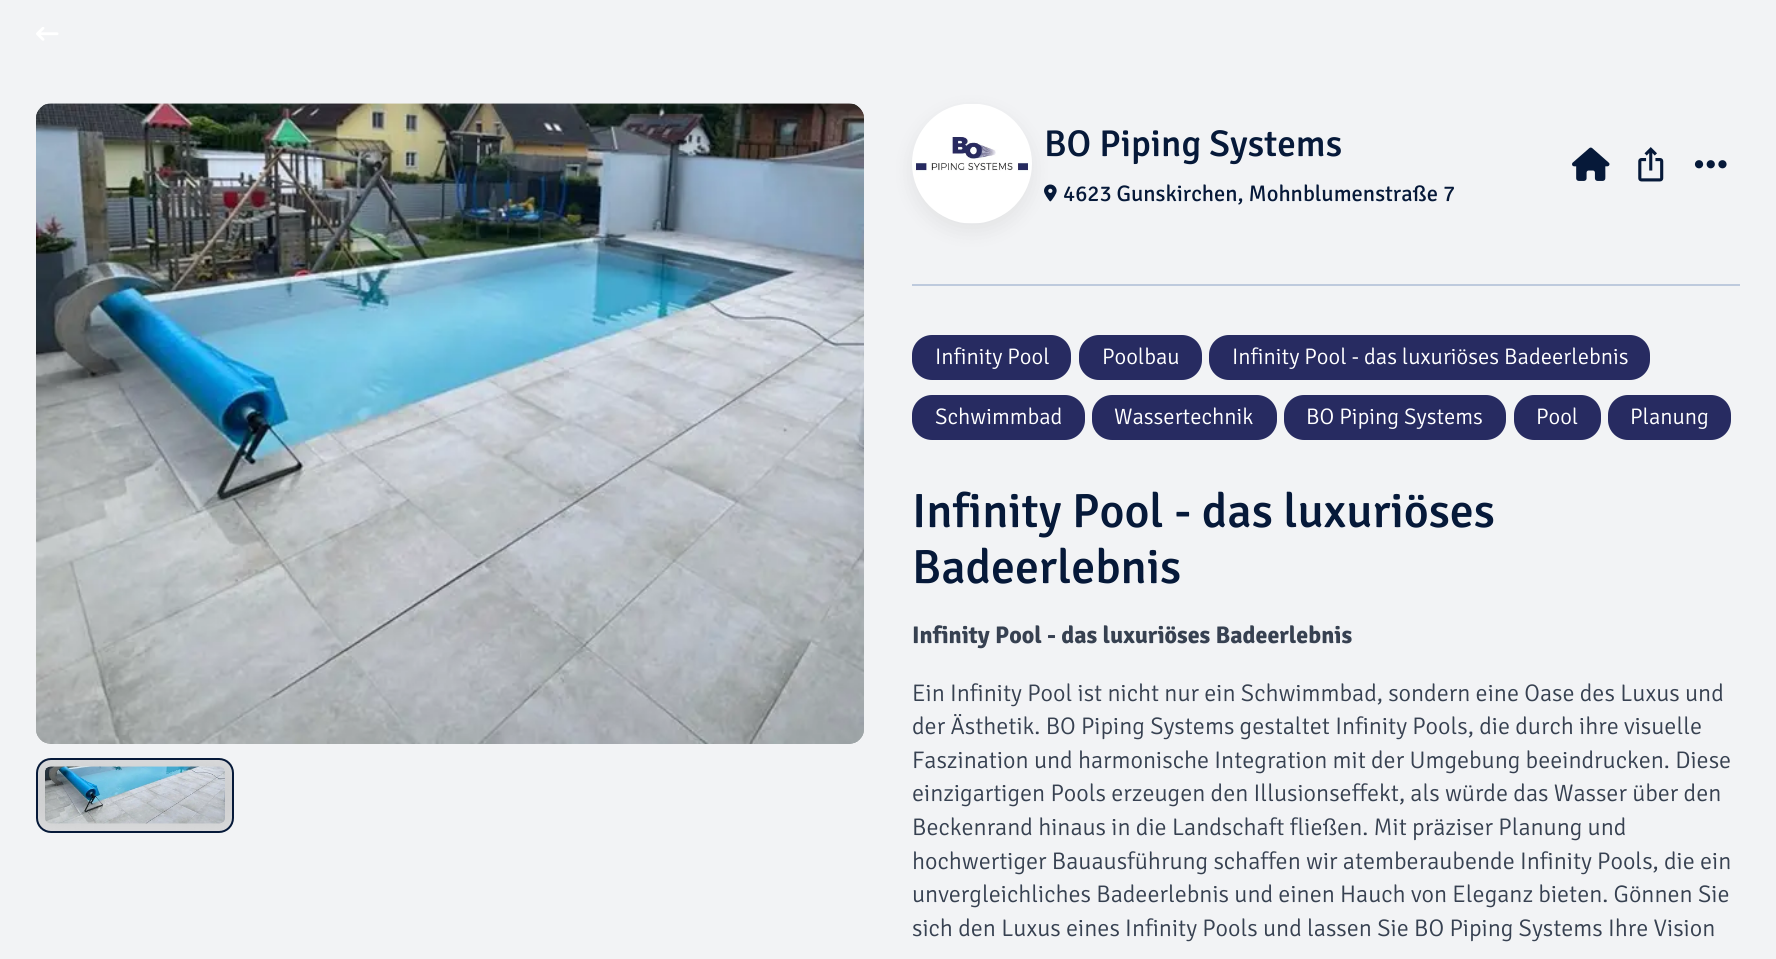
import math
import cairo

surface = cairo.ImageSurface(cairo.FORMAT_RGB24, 1776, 959)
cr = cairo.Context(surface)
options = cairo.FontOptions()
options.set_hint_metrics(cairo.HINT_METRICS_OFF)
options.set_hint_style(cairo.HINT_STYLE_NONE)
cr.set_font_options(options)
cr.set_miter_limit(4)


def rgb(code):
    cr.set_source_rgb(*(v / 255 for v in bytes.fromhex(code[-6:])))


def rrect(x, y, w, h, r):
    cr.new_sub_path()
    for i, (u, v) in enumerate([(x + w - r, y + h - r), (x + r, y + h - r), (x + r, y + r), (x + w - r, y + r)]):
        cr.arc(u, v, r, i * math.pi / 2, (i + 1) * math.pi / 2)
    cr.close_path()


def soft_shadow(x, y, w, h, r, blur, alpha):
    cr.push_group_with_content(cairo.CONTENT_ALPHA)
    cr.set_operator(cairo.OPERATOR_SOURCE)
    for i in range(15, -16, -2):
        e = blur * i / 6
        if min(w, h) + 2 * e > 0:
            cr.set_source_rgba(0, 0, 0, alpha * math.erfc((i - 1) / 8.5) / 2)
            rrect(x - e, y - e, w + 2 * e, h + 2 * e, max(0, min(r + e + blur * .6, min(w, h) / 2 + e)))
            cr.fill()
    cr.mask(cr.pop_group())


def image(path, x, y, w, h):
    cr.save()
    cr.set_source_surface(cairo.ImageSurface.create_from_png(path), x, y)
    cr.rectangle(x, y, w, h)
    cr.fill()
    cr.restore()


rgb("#f2f3f5")
cr.paint()
image("img/1.png", 36, 27, 23, 14)
image("img/2.png", 36, 103, 828, 641)
image("img/3.png", 36, 103, 828, 641)
image("img/4.png", 38, 759, 195, 72)
rrect(37, 759, 196, 73, 14)
rgb("#061939")
cr.stroke()
image("img/5.png", 45, 766, 180, 58)
image("img/7.png", 1044, 184, 13, 18)
rgb("#000000")
soft_shadow(912, 111, 120, 120, 60, 11, 0.07)
image("img/6.png", 912, 104, 120, 120)
image("img/8.png", 1572, 147, 38, 34)
image("img/9.png", 1638, 147, 26, 35)
image("img/10.png", 1694, 160, 33, 9)
rgb("#becadd")
cr.rectangle(912, 284, 828, 2)
cr.fill()
rgb("#272b61")
rrect(912, 335, 159, 45, 20)
cr.fill()
rrect(1079, 335, 123, 45, 20)
cr.fill()
rrect(1209, 335, 441, 45, 20)
cr.fill()
rrect(912, 395, 173, 45, 20)
cr.fill()
rrect(1092, 395, 185, 45, 20)
cr.fill()
rrect(1284, 395, 222, 45, 20)
cr.fill()
rrect(1514, 395, 87, 45, 20)
cr.fill()
rrect(1608, 395, 123, 45, 20)
cr.fill()
cr.select_font_face("Signika Medium")
cr.set_font_size(37.25)
rgb("#061939")
cr.move_to(1044, 156)
cr.show_text("BO Piping Systems")
cr.select_font_face("Signika")
cr.set_font_size(22.5)
cr.move_to(1063, 201)
cr.show_text("4623 Gunskirchen, Mohnblumenstraße 7")
cr.select_font_face("Signika Light")
rgb("#ffffff")
for x, y, s in [
    (935, 364, "Infinity Pool"),
    (1102, 364, "Poolbau"),
    (1232, 364, "Infinity Pool - das luxuriöses Badeerlebnis"),
    (935, 424, "Schwimmbad"),
    (1114, 424, "Wassertechnik"),
    (1306, 424, "BO Piping Systems"),
    (1536, 424, "Pool"),
    (1630, 424, "Planung"),
]:
    cr.move_to(x, y)
    cr.show_text(s)
cr.select_font_face("Signika Medium")
cr.set_font_size(48)
rgb("#061939")
cr.move_to(912, 527)
cr.show_text("Infinity Pool - das luxuriöses")
cr.move_to(912, 583)
cr.show_text("Badeerlebnis")
cr.select_font_face("Signika", cairo.FONT_SLANT_NORMAL, cairo.FONT_WEIGHT_BOLD)
cr.set_font_size(24)
rgb("#374151")
cr.move_to(912, 643)
cr.show_text("Infinity Pool - das luxuriöses Badeerlebnis")
cr.select_font_face("Signika Light")
for x, y, s in [
    (912, 701, "Ein Infinity Pool ist nicht nur ein Schwimmbad, sondern eine Oase des Luxus und"),
    (912, 734, "der Ästhetik. BO Piping Systems gestaltet Infinity Pools, die durch ihre visuelle"),
    (912, 768, "Faszination und harmonische Integration mit der Umgebung beeindrucken. Diese"),
    (912, 801, "einzigartigen Pools erzeugen den Illusionseffekt, als würde das Wasser über den"),
    (912, 835, "Beckenrand hinaus in die Landschaft fließen. Mit präziser Planung und"),
    (912, 869, "hochwertiger Bauausführung schaffen wir atemberaubende Infinity Pools, die ein"),
    (912, 902, "unvergleichliches Badeerlebnis und einen Hauch von Eleganz bieten. Gönnen Sie"),
    (912, 936, "sich den Luxus eines Infinity Pools und lassen Sie BO Piping Systems Ihre Vision"),
]:
    cr.move_to(x, y)
    cr.show_text(s)
surface.write_to_png("page.png")
